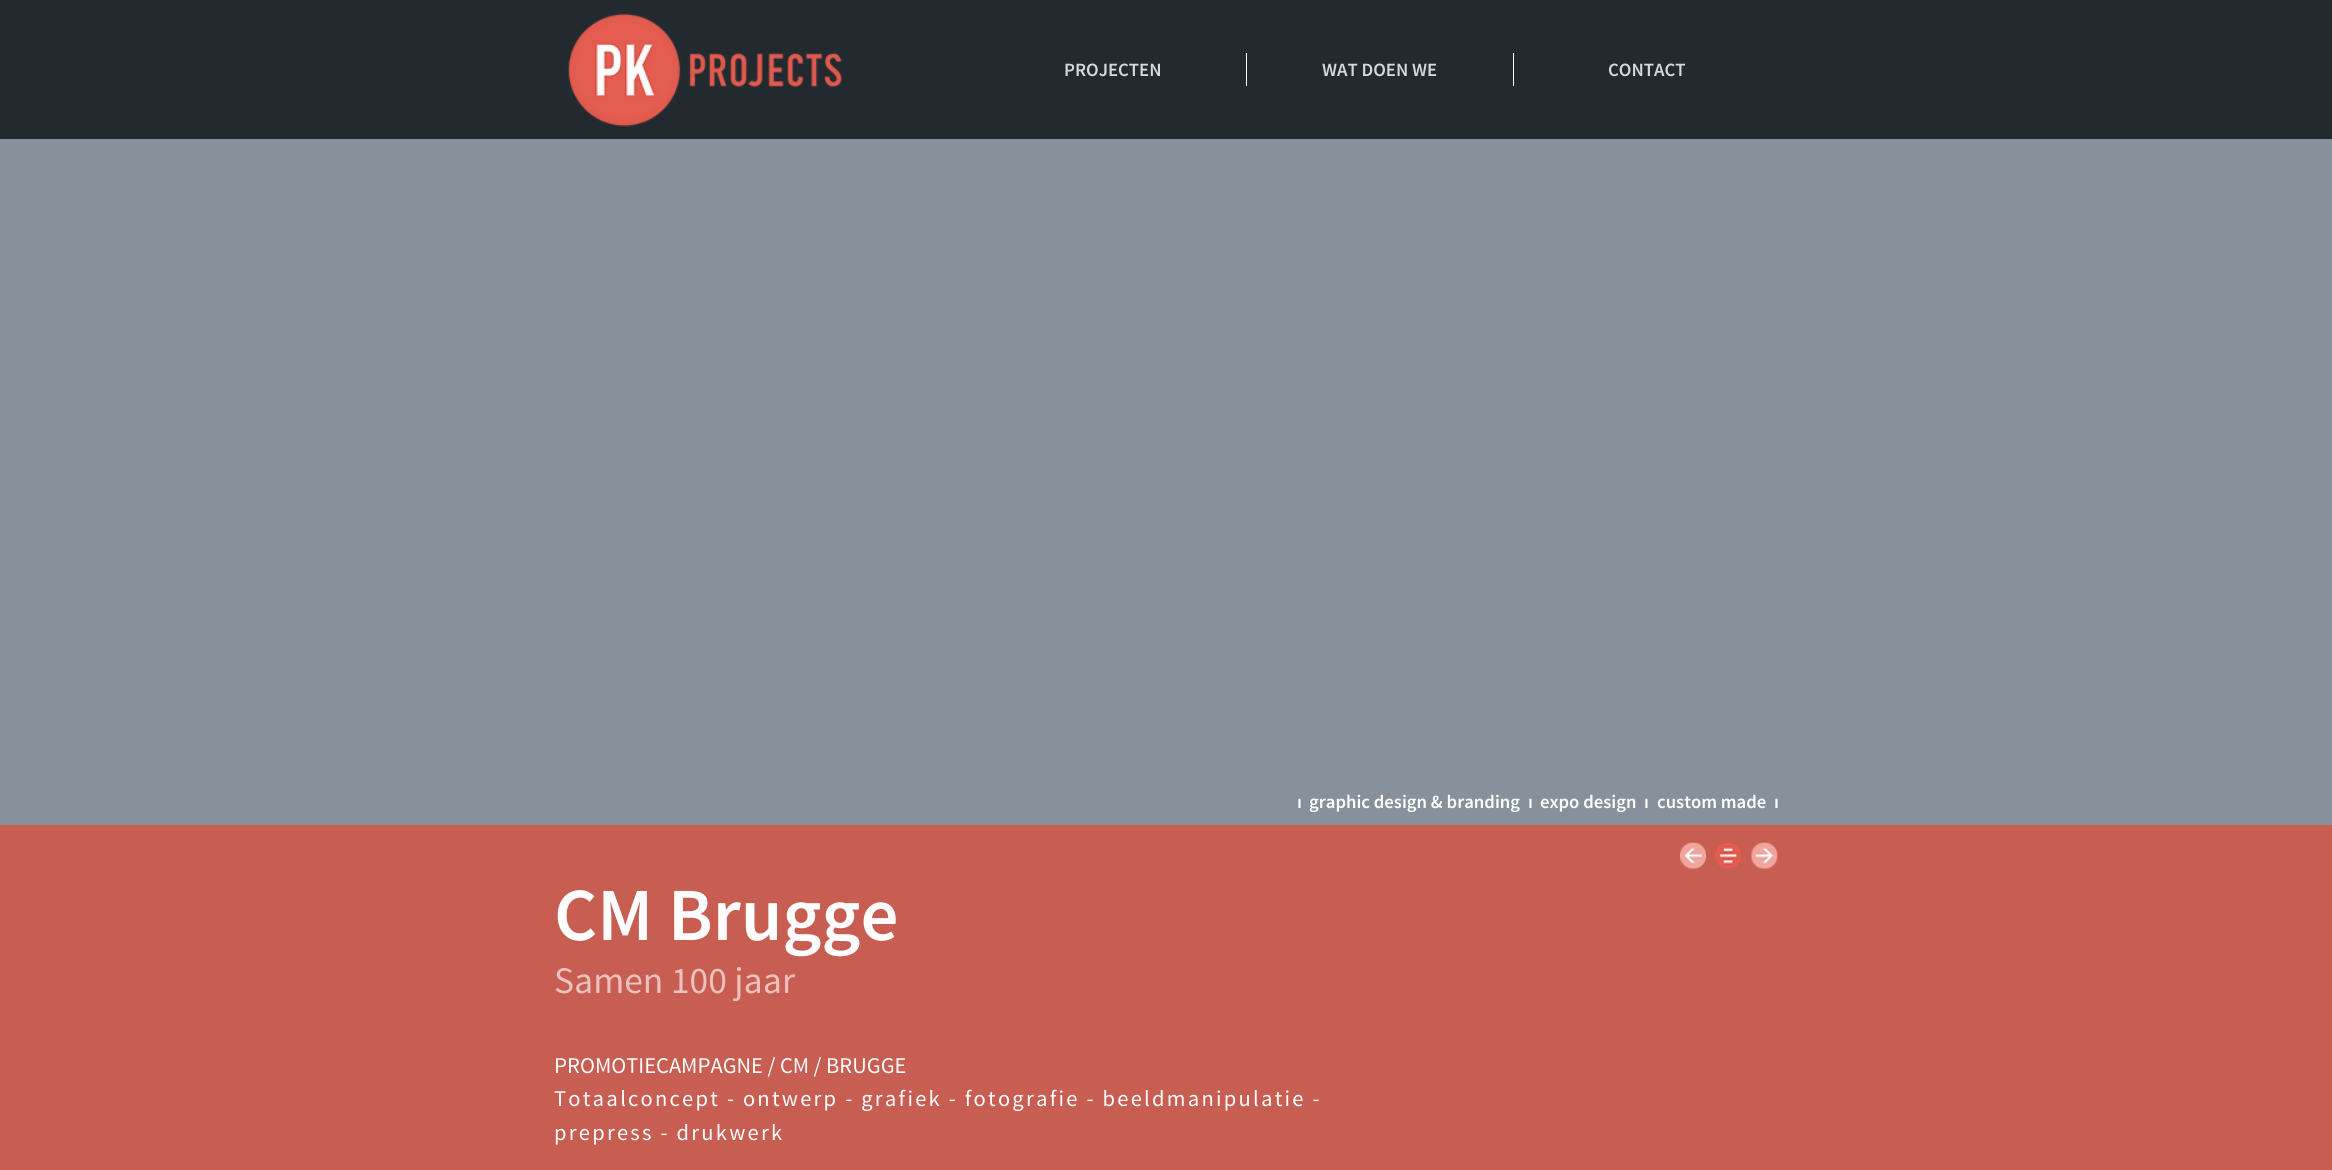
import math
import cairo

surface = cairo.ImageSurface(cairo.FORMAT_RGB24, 2332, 1170)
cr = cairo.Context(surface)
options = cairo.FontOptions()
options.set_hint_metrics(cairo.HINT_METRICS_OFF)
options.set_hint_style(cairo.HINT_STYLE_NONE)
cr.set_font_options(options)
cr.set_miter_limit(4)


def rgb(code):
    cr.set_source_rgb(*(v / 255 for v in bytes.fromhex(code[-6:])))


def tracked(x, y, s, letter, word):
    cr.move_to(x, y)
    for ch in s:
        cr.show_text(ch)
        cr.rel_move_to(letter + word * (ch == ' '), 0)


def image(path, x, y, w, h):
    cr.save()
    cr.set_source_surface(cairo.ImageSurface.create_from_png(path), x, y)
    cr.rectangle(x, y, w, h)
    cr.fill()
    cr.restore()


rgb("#86919c")
cr.paint()
rgb("#232a2f")
cr.rectangle(0, 0, 2332, 139)
cr.fill()
image("img/1.png", 567, 13, 276, 114)
for x, y, w, h, color in [
    (1246, 53, 1, 33, "#ffffff"),
    (1513, 53, 1, 33, "#ffffff"),
    (0, 825, 2332, 345, "#c85d52"),
]:
    rgb(color)
    cr.rectangle(x, y, w, h)
    cr.fill()
image("img/2.png", 1680, 842, 27, 27)
image("img/3.png", 1715, 842, 26, 27)
image("img/4.png", 1751, 842, 27, 27)
cr.select_font_face("Source Sans Pro SemiBold")
cr.set_font_size(18.75)
rgb("#d7d8d9")
for x, y, s in [
    (1064, 76, "PROJECTEN"),
    (1322, 76, "WAT DOEN WE"),
    (1608, 76, "CONTACT"),
]:
    cr.move_to(x, y)
    cr.show_text(s)
rgb("#ffffff")
for x, y, s in [
    (1297, 808, "ı"),
    (1309, 808, "graphic design & branding"),
    (1528, 808, "ı"),
    (1540, 808, "expo design"),
    (1644, 808, "ı"),
    (1657, 808, "custom made"),
    (1774, 808, "ı"),
]:
    cr.move_to(x, y)
    cr.show_text(s)
cr.set_font_size(75)
cr.move_to(554, 940)
cr.show_text("CM Brugge")
cr.select_font_face("Source Sans Pro")
cr.set_font_size(37.5)
rgb("#edc2be")
cr.move_to(554, 993)
cr.show_text("Samen 100 jaar")
cr.set_font_size(22.5)
rgb("#ffffff")
cr.move_to(554, 1073)
cr.show_text("PROMOTIECAMPAGNE / CM / BRUGGE")
tracked(554, 1106, "Totaalconcept - ontwerp - grafiek - fotografie - beeldmanipulatie -", 2.25, 0)
tracked(554, 1140, "prepress - drukwerk", 2.25, 0)
surface.write_to_png("page.png")
